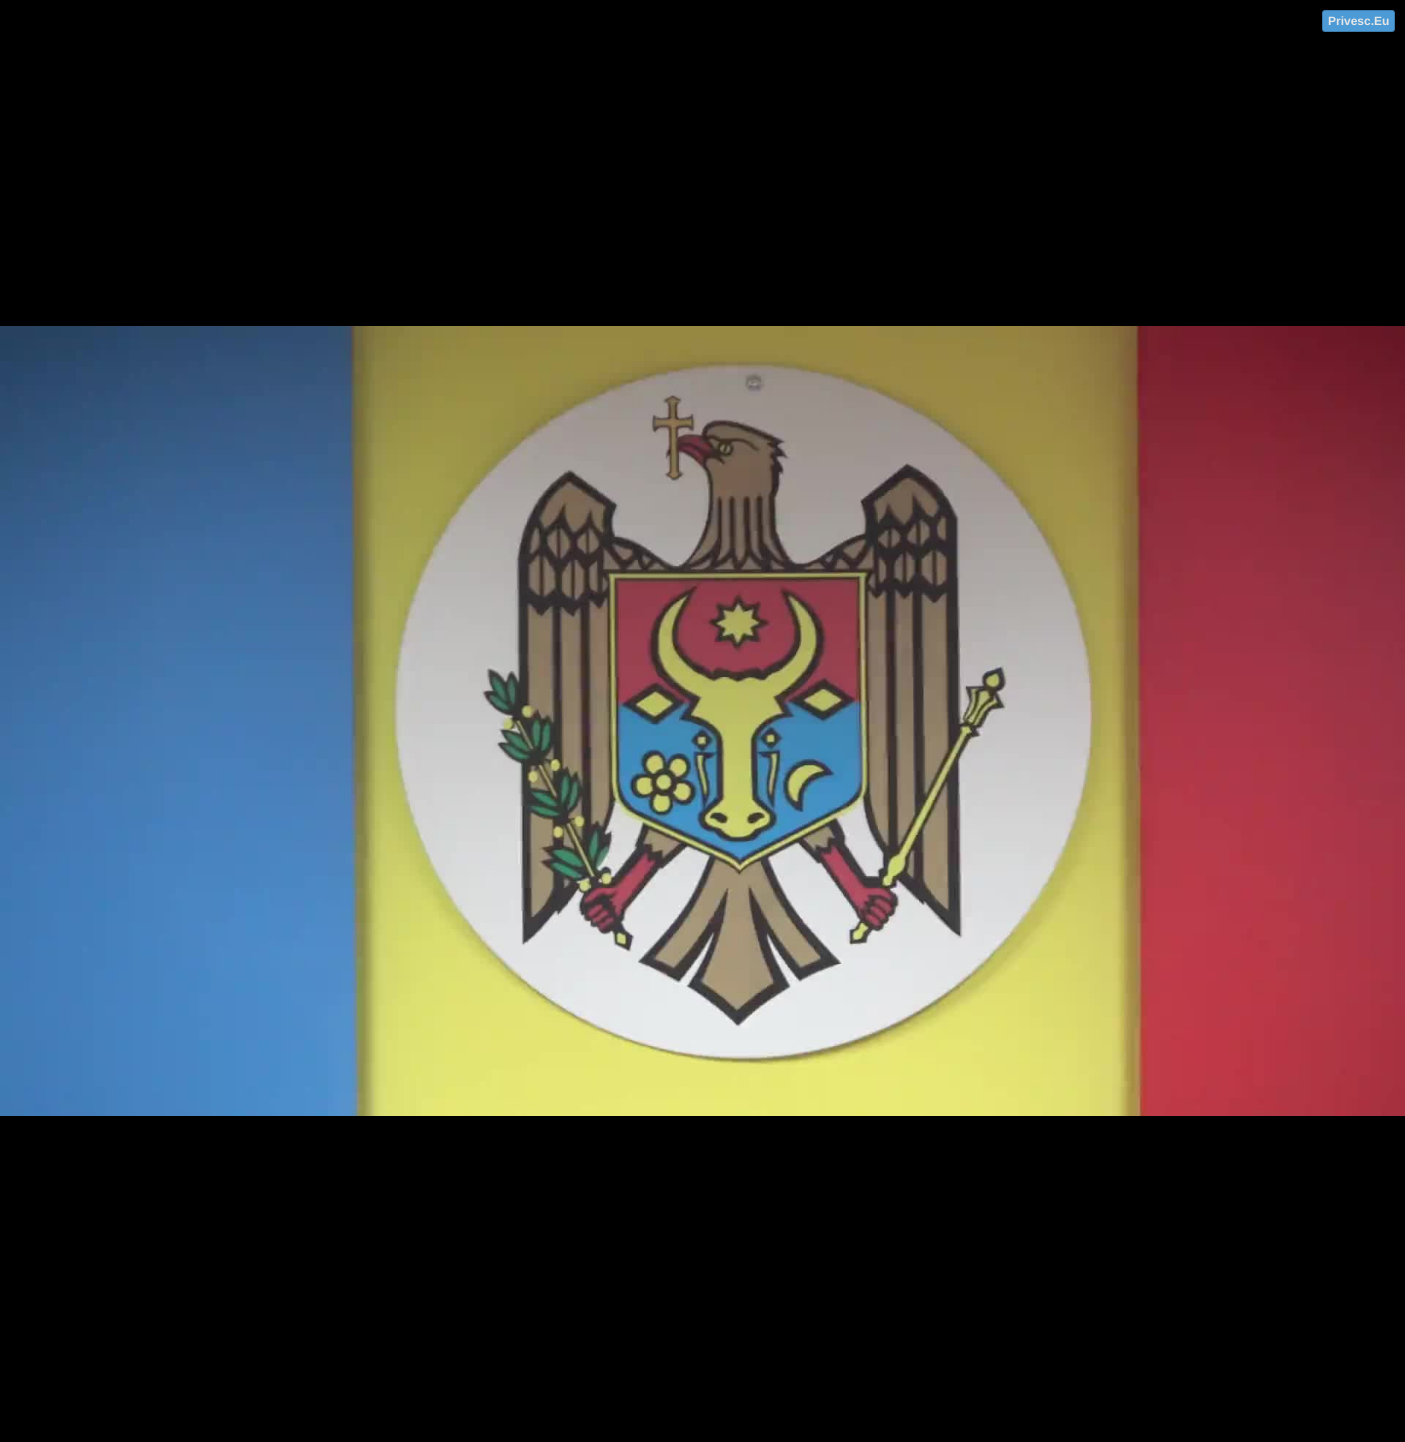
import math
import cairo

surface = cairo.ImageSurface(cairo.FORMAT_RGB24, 1405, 1442)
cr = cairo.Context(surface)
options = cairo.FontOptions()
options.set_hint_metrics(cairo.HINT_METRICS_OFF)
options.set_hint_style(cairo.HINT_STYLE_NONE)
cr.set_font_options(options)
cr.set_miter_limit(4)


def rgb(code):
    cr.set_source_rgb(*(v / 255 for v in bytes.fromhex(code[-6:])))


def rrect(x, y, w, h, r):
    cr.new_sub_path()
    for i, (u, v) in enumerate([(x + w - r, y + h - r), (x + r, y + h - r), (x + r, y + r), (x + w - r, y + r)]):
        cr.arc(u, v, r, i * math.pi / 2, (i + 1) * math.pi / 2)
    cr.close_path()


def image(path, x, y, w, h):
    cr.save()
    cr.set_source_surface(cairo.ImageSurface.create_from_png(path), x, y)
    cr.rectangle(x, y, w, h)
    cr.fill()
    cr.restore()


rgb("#000000")
cr.paint()
rgb("#4d9bd6")
rrect(1322, 10, 73, 22, 3)
cr.fill()
rrect(1322.5, 10.5, 72, 21, 2.5)
cr.set_source_rgba(0, 0, 0, 0.2)
cr.set_line_width(1)
cr.stroke()
image("img/1.png", 0, 326, 1405, 790)
cr.select_font_face("Liberation Sans", cairo.FONT_SLANT_NORMAL, cairo.FONT_WEIGHT_BOLD)
cr.set_font_size(12)
rgb("#e6e6e6")
cr.move_to(1328, 25)
cr.show_text("Privesc.Eu")
surface.write_to_png("page.png")
